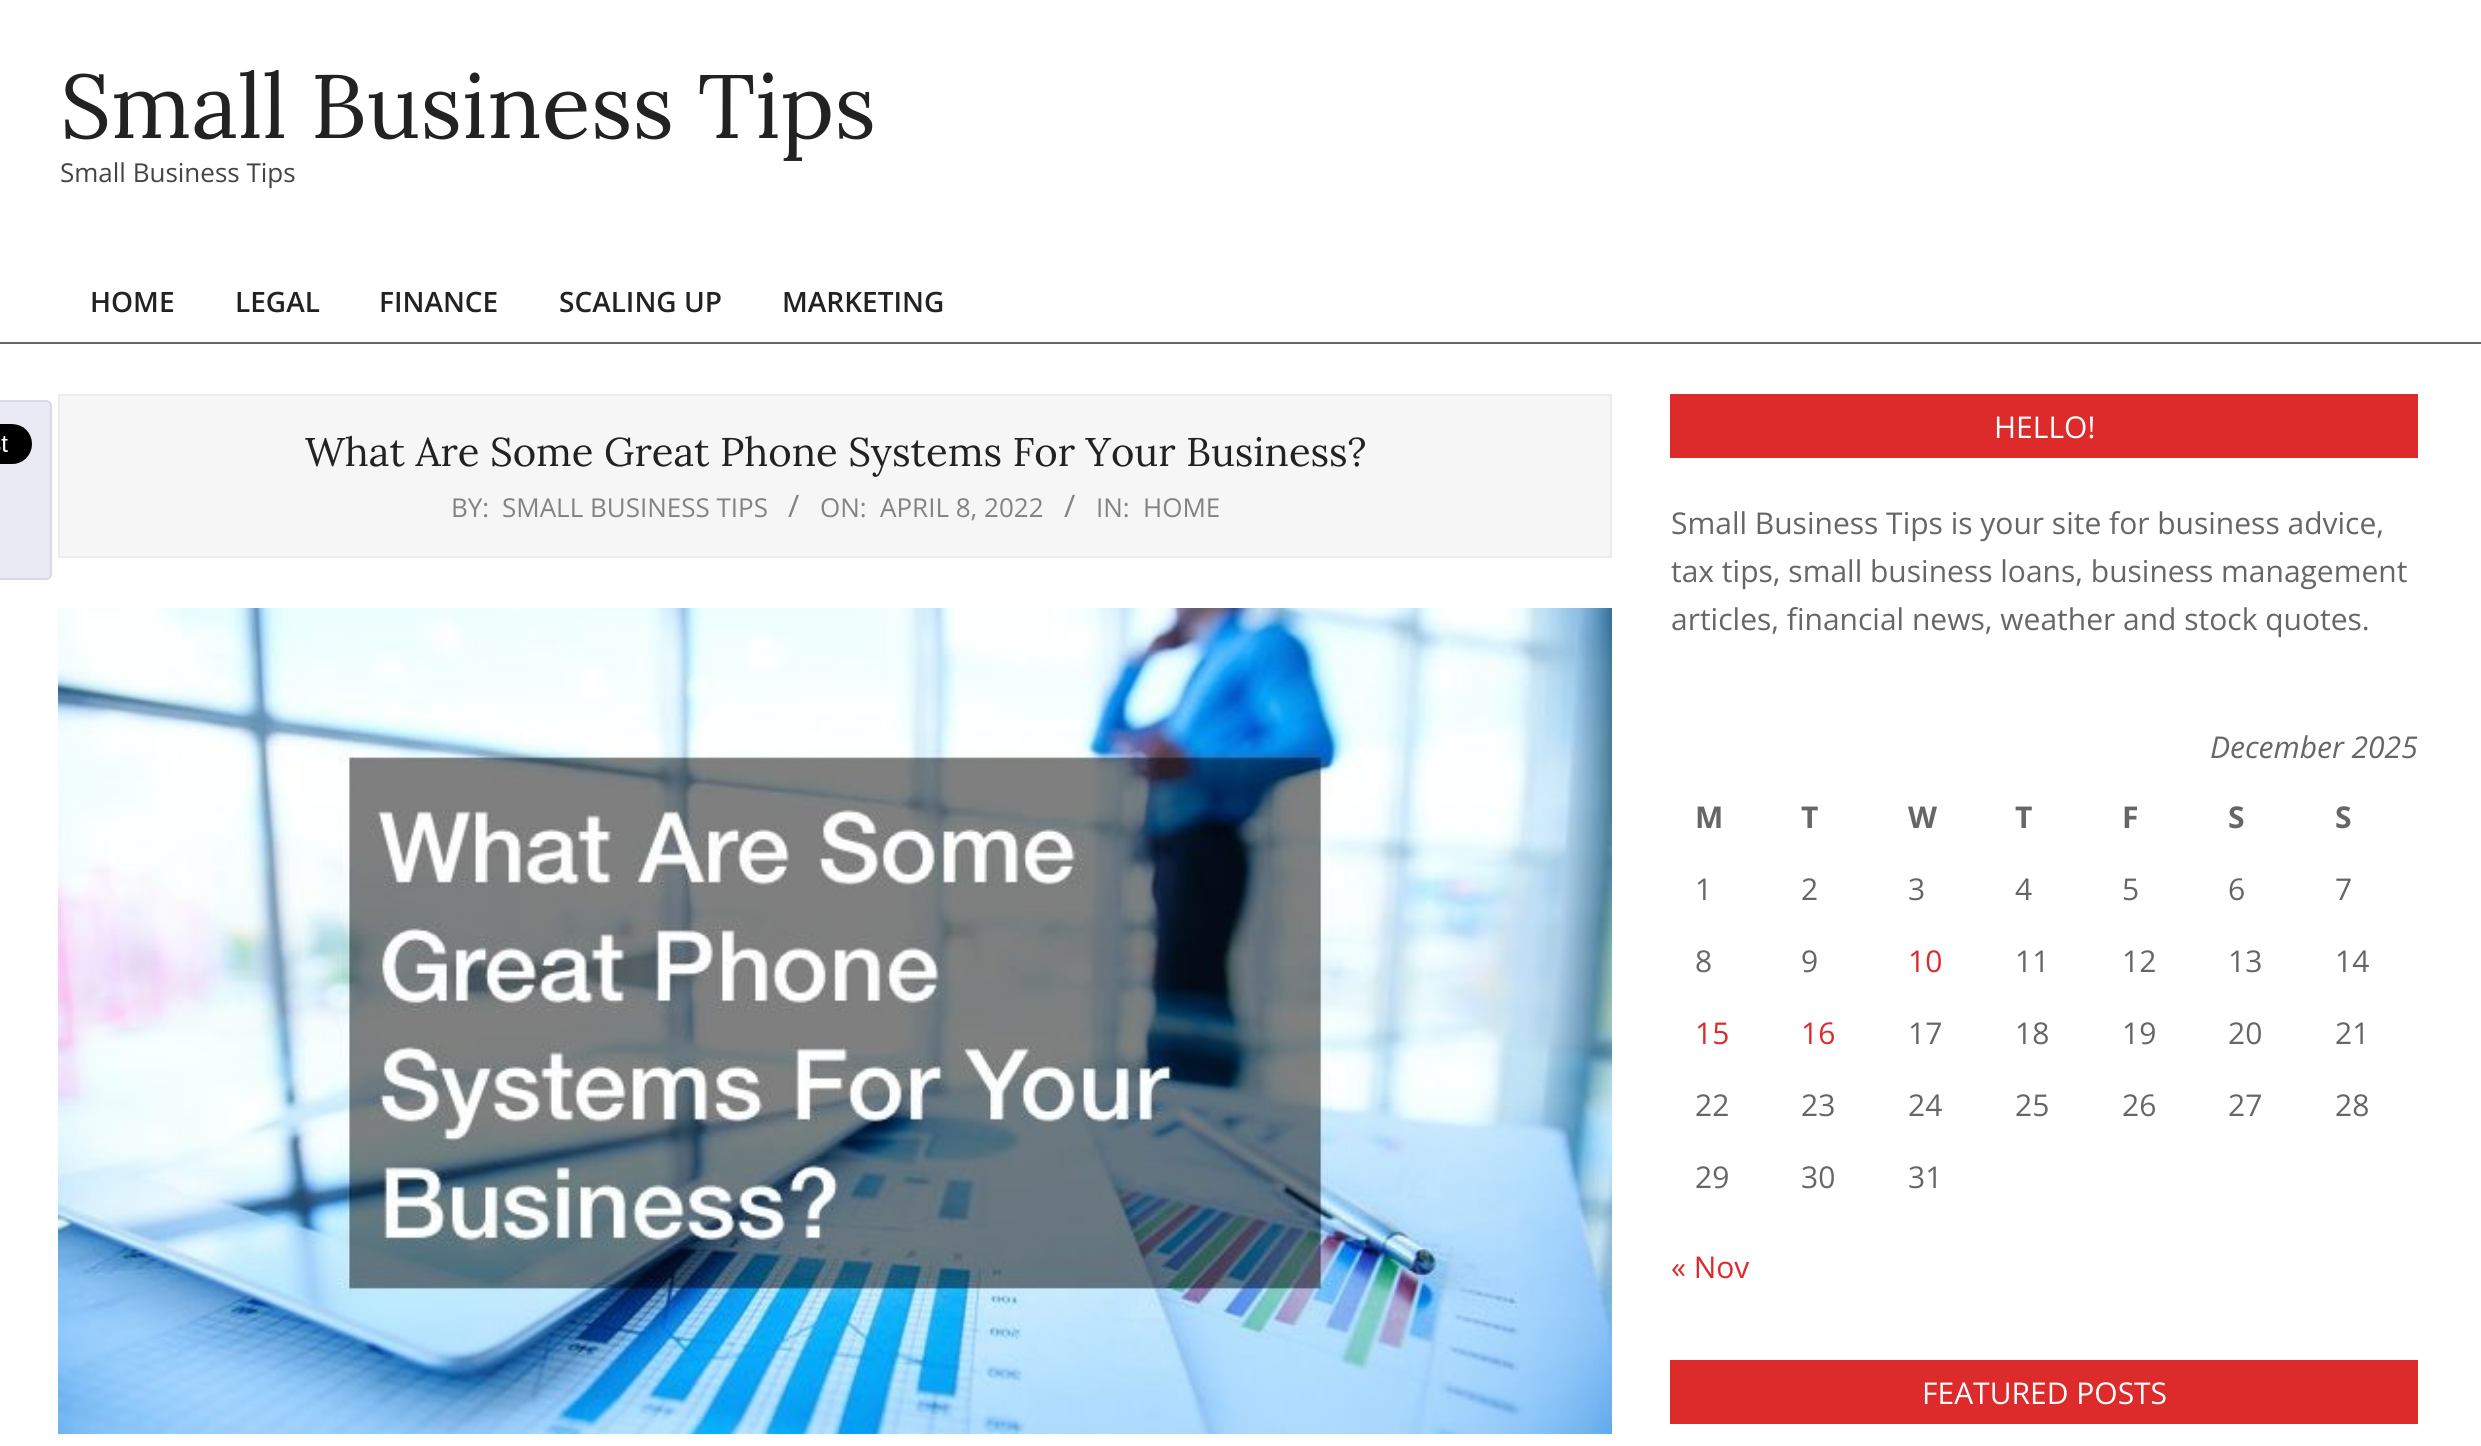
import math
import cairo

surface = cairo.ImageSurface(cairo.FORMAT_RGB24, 2481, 1446)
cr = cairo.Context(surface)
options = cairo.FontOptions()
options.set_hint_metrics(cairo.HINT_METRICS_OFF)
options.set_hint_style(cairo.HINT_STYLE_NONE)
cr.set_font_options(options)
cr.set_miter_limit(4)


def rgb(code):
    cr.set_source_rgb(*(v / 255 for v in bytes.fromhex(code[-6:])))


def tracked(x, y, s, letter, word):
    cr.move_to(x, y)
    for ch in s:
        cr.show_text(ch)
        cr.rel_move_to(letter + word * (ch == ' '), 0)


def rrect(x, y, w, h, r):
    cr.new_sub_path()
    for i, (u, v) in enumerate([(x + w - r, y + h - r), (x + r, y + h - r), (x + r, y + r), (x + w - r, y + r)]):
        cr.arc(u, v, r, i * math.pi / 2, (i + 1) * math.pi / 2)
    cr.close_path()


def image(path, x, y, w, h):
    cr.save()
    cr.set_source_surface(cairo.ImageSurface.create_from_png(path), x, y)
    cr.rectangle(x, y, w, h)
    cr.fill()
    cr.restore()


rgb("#ffffff")
cr.paint()
rgb("#eaeaf4")
rrect(-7, 401, 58, 178, 5)
cr.fill_preserve()
rgb("#d9d9ed")
cr.stroke()
image("img/1.png", 0, 424, 32, 40)
rgb("#666666")
cr.rectangle(0, 342, 2481, 2)
cr.fill()
rgb("#f6f6f6")
cr.rectangle(59, 395, 1552, 162)
cr.fill_preserve()
rgb("#ececec")
cr.stroke()
image("img/2.png", 58, 608, 1554, 826)
rgb("#dd2a2a")
cr.rectangle(1670, 394, 748, 64)
cr.fill()
cr.rectangle(1670, 1360, 748, 64)
cr.fill()
cr.select_font_face("Lora")
cr.set_font_size(90)
rgb("#222222")
cr.move_to(60, 138)
cr.show_text("Small Business Tips")
cr.select_font_face("Open Sans")
cr.set_font_size(26)
rgb("#444444")
cr.move_to(60, 182)
cr.show_text("Small Business Tips")
cr.select_font_face("Open Sans SemiBold")
cr.set_font_size(28)
rgb("#222222")
for x, y, s in [
    (90, 312, "HOME"),
    (235, 312, "LEGAL"),
    (379, 312, "FINANCE"),
    (559, 312, "SCALING UP"),
    (782, 312, "MARKETING"),
]:
    cr.move_to(x, y)
    cr.show_text(s)
cr.select_font_face("Lora")
cr.set_font_size(40)
cr.move_to(305, 466)
cr.show_text("What Are Some Great Phone Systems For Your Business?")
cr.select_font_face("Open Sans")
cr.set_font_size(26)
rgb("#838383")
cr.move_to(451, 517)
cr.show_text("BY:")
cr.move_to(502, 517)
cr.show_text("SMALL BUSINESS TIPS")
cr.set_font_size(31)
cr.move_to(788, 517)
cr.show_text("/")
cr.set_font_size(26)
cr.move_to(820, 517)
cr.show_text("ON:")
cr.move_to(880, 517)
cr.show_text("APRIL 8, 2022")
cr.set_font_size(31)
cr.move_to(1064, 517)
cr.show_text("/")
cr.set_font_size(26)
cr.move_to(1096, 517)
cr.show_text("IN:")
cr.move_to(1143, 517)
cr.show_text("HOME")
cr.set_font_size(30)
rgb("#ffffff")
cr.move_to(1994, 438)
cr.show_text("HELLO!")
rgb("#666666")
for x, y, s in [
    (1671, 534, "Small Business Tips is your site for business advice,"),
    (1671, 582, "tax tips, small business loans, business management"),
    (1671, 630, "articles, financial news, weather and stock quotes."),
]:
    cr.move_to(x, y)
    cr.show_text(s)
cr.select_font_face("Open Sans", cairo.FONT_SLANT_ITALIC)
cr.move_to(2210, 758)
cr.show_text("December 2025")
cr.select_font_face("Open Sans", cairo.FONT_SLANT_NORMAL, cairo.FONT_WEIGHT_BOLD)
for x, y, s in [
    (1695, 828, "M"),
    (1801, 828, "T"),
    (1908, 828, "W"),
    (2015, 828, "T"),
    (2122, 828, "F"),
    (2228, 828, "S"),
    (2335, 828, "S"),
]:
    tracked(x, y, s, 3, 0)
cr.select_font_face("Open Sans")
for x, y, s in [
    (1695, 900, "1"),
    (1801, 900, "2"),
    (1908, 900, "3"),
    (2015, 900, "4"),
    (2122, 900, "5"),
    (2228, 900, "6"),
    (2335, 900, "7"),
    (1695, 972, "8"),
    (1801, 972, "9"),
]:
    cr.move_to(x, y)
    cr.show_text(s)
rgb("#dd2a2a")
cr.move_to(1908, 972)
cr.show_text("10")
rgb("#666666")
for x, y, s in [
    (2015, 972, "11"),
    (2122, 972, "12"),
    (2228, 972, "13"),
    (2335, 972, "14"),
]:
    cr.move_to(x, y)
    cr.show_text(s)
rgb("#dd2a2a")
cr.move_to(1695, 1044)
cr.show_text("15")
cr.move_to(1801, 1044)
cr.show_text("16")
rgb("#666666")
for x, y, s in [
    (1908, 1044, "17"),
    (2015, 1044, "18"),
    (2122, 1044, "19"),
    (2228, 1044, "20"),
    (2335, 1044, "21"),
    (1695, 1116, "22"),
    (1801, 1116, "23"),
    (1908, 1116, "24"),
    (2015, 1116, "25"),
    (2122, 1116, "26"),
    (2228, 1116, "27"),
    (2335, 1116, "28"),
    (1695, 1188, "29"),
    (1801, 1188, "30"),
    (1908, 1188, "31"),
]:
    cr.move_to(x, y)
    cr.show_text(s)
rgb("#dd2a2a")
cr.move_to(1671, 1278)
cr.show_text("« Nov")
rgb("#ffffff")
cr.move_to(1922, 1404)
cr.show_text("FEATURED POSTS")
surface.write_to_png("page.png")
